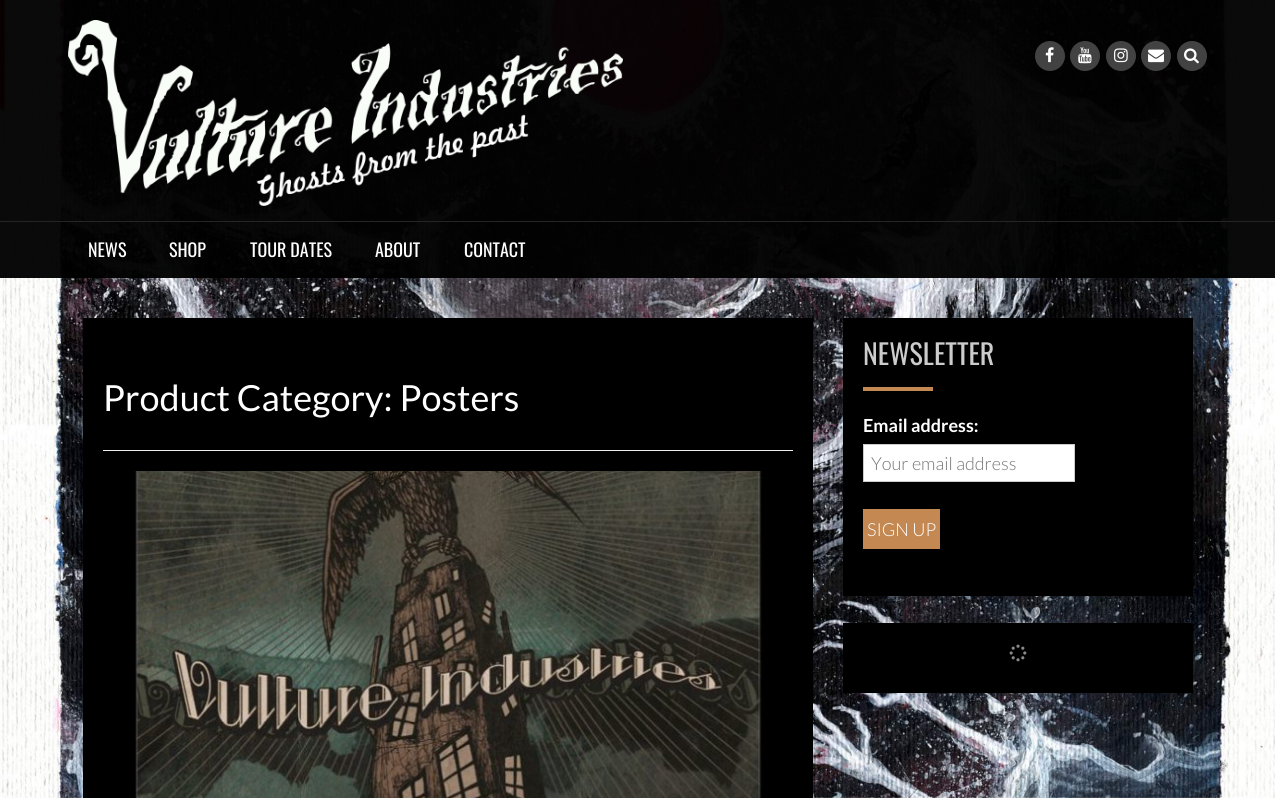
import math
import cairo

surface = cairo.ImageSurface(cairo.FORMAT_RGB24, 1275, 798)
cr = cairo.Context(surface)
options = cairo.FontOptions()
options.set_hint_metrics(cairo.HINT_METRICS_OFF)
options.set_hint_style(cairo.HINT_STYLE_NONE)
cr.set_font_options(options)
cr.set_miter_limit(4)


def rgb(code):
    cr.set_source_rgb(*(v / 255 for v in bytes.fromhex(code[-6:])))


def image(path, x, y, w, h):
    cr.save()
    cr.set_source_surface(cairo.ImageSurface.create_from_png(path), x, y)
    cr.rectangle(x, y, w, h)
    cr.fill()
    cr.restore()


rgb("#ffffff")
cr.paint()
image("img/1.png", 0, 0, 1275, 798)
cr.set_source_rgba(0, 0, 0, 0.8)
cr.rectangle(0, 0, 1275, 278)
cr.fill()
cr.rectangle(0, 0, 1275, 278)
cr.fill()
rgb("#252525")
cr.rectangle(0, 221, 1275, 1)
cr.fill()
image("img/2.png", 68, 20, 555, 186)
rgb("#424242")
cr.arc(1050, 56, 15, 0, 2 * math.pi)
cr.fill()
image("img/3.png", 1045, 47, 9, 16)
cr.arc(1085, 56, 15, 0, 2 * math.pi)
cr.fill()
image("img/4.png", 1078, 47, 14, 17)
cr.arc(1121, 56, 15, 0, 2 * math.pi)
cr.fill()
image("img/5.png", 1114, 48, 14, 15)
cr.arc(1156, 56, 15, 0, 2 * math.pi)
cr.fill()
image("img/6.png", 1148, 49, 16, 14)
cr.arc(1192, 56, 15, 0, 2 * math.pi)
cr.fill()
image("img/7.png", 1184, 48, 15, 16)
rgb("#000000")
cr.rectangle(83, 318, 730, 480)
cr.fill()
rgb("#eeeeee")
cr.rectangle(103, 450, 690, 1)
cr.fill()
image("img/8.png", 135, 471, 629, 327)
rgb("#000000")
cr.rectangle(843, 318, 350, 278)
cr.fill()
rgb("#c48852")
cr.rectangle(863, 387, 70, 4)
cr.fill()
rgb("#ffffff")
cr.rectangle(863.5, 444.5, 211, 37)
cr.fill_preserve()
rgb("#cccccc")
cr.set_line_width(1)
cr.stroke()
rgb("#c48852")
cr.rectangle(863, 509, 77, 40)
cr.fill()
rgb("#000000")
cr.rectangle(843, 623, 350, 70)
cr.fill()
image("img/9.png", 1009, 644, 18, 18)
cr.select_font_face("Oswald")
cr.set_font_size(18)
rgb("#ffffff")
for x, y, s in [
    (88, 257, "NEWS"),
    (169, 257, "SHOP"),
    (250, 257, "TOUR DATES"),
    (375, 257, "ABOUT"),
    (464, 257, "CONTACT"),
]:
    cr.move_to(x, y)
    cr.show_text(s)
cr.select_font_face("Lato")
cr.set_font_size(36)
cr.move_to(103, 411)
cr.show_text("Product Category: Posters")
cr.select_font_face("Oswald")
cr.set_font_size(28)
rgb("#cccccc")
cr.move_to(863, 365)
cr.show_text("NEWSLETTER")
cr.select_font_face("Lato", cairo.FONT_SLANT_NORMAL, cairo.FONT_WEIGHT_BOLD)
cr.set_font_size(18)
rgb("#ffffff")
cr.move_to(863, 432)
cr.show_text("Email address:")
cr.select_font_face("Lato Light")
rgb("#757575")
cr.move_to(871, 470)
cr.show_text("Your email address")
rgb("#ffffff")
cr.move_to(867, 536)
cr.show_text("SIGN UP")
surface.write_to_png("page.png")
